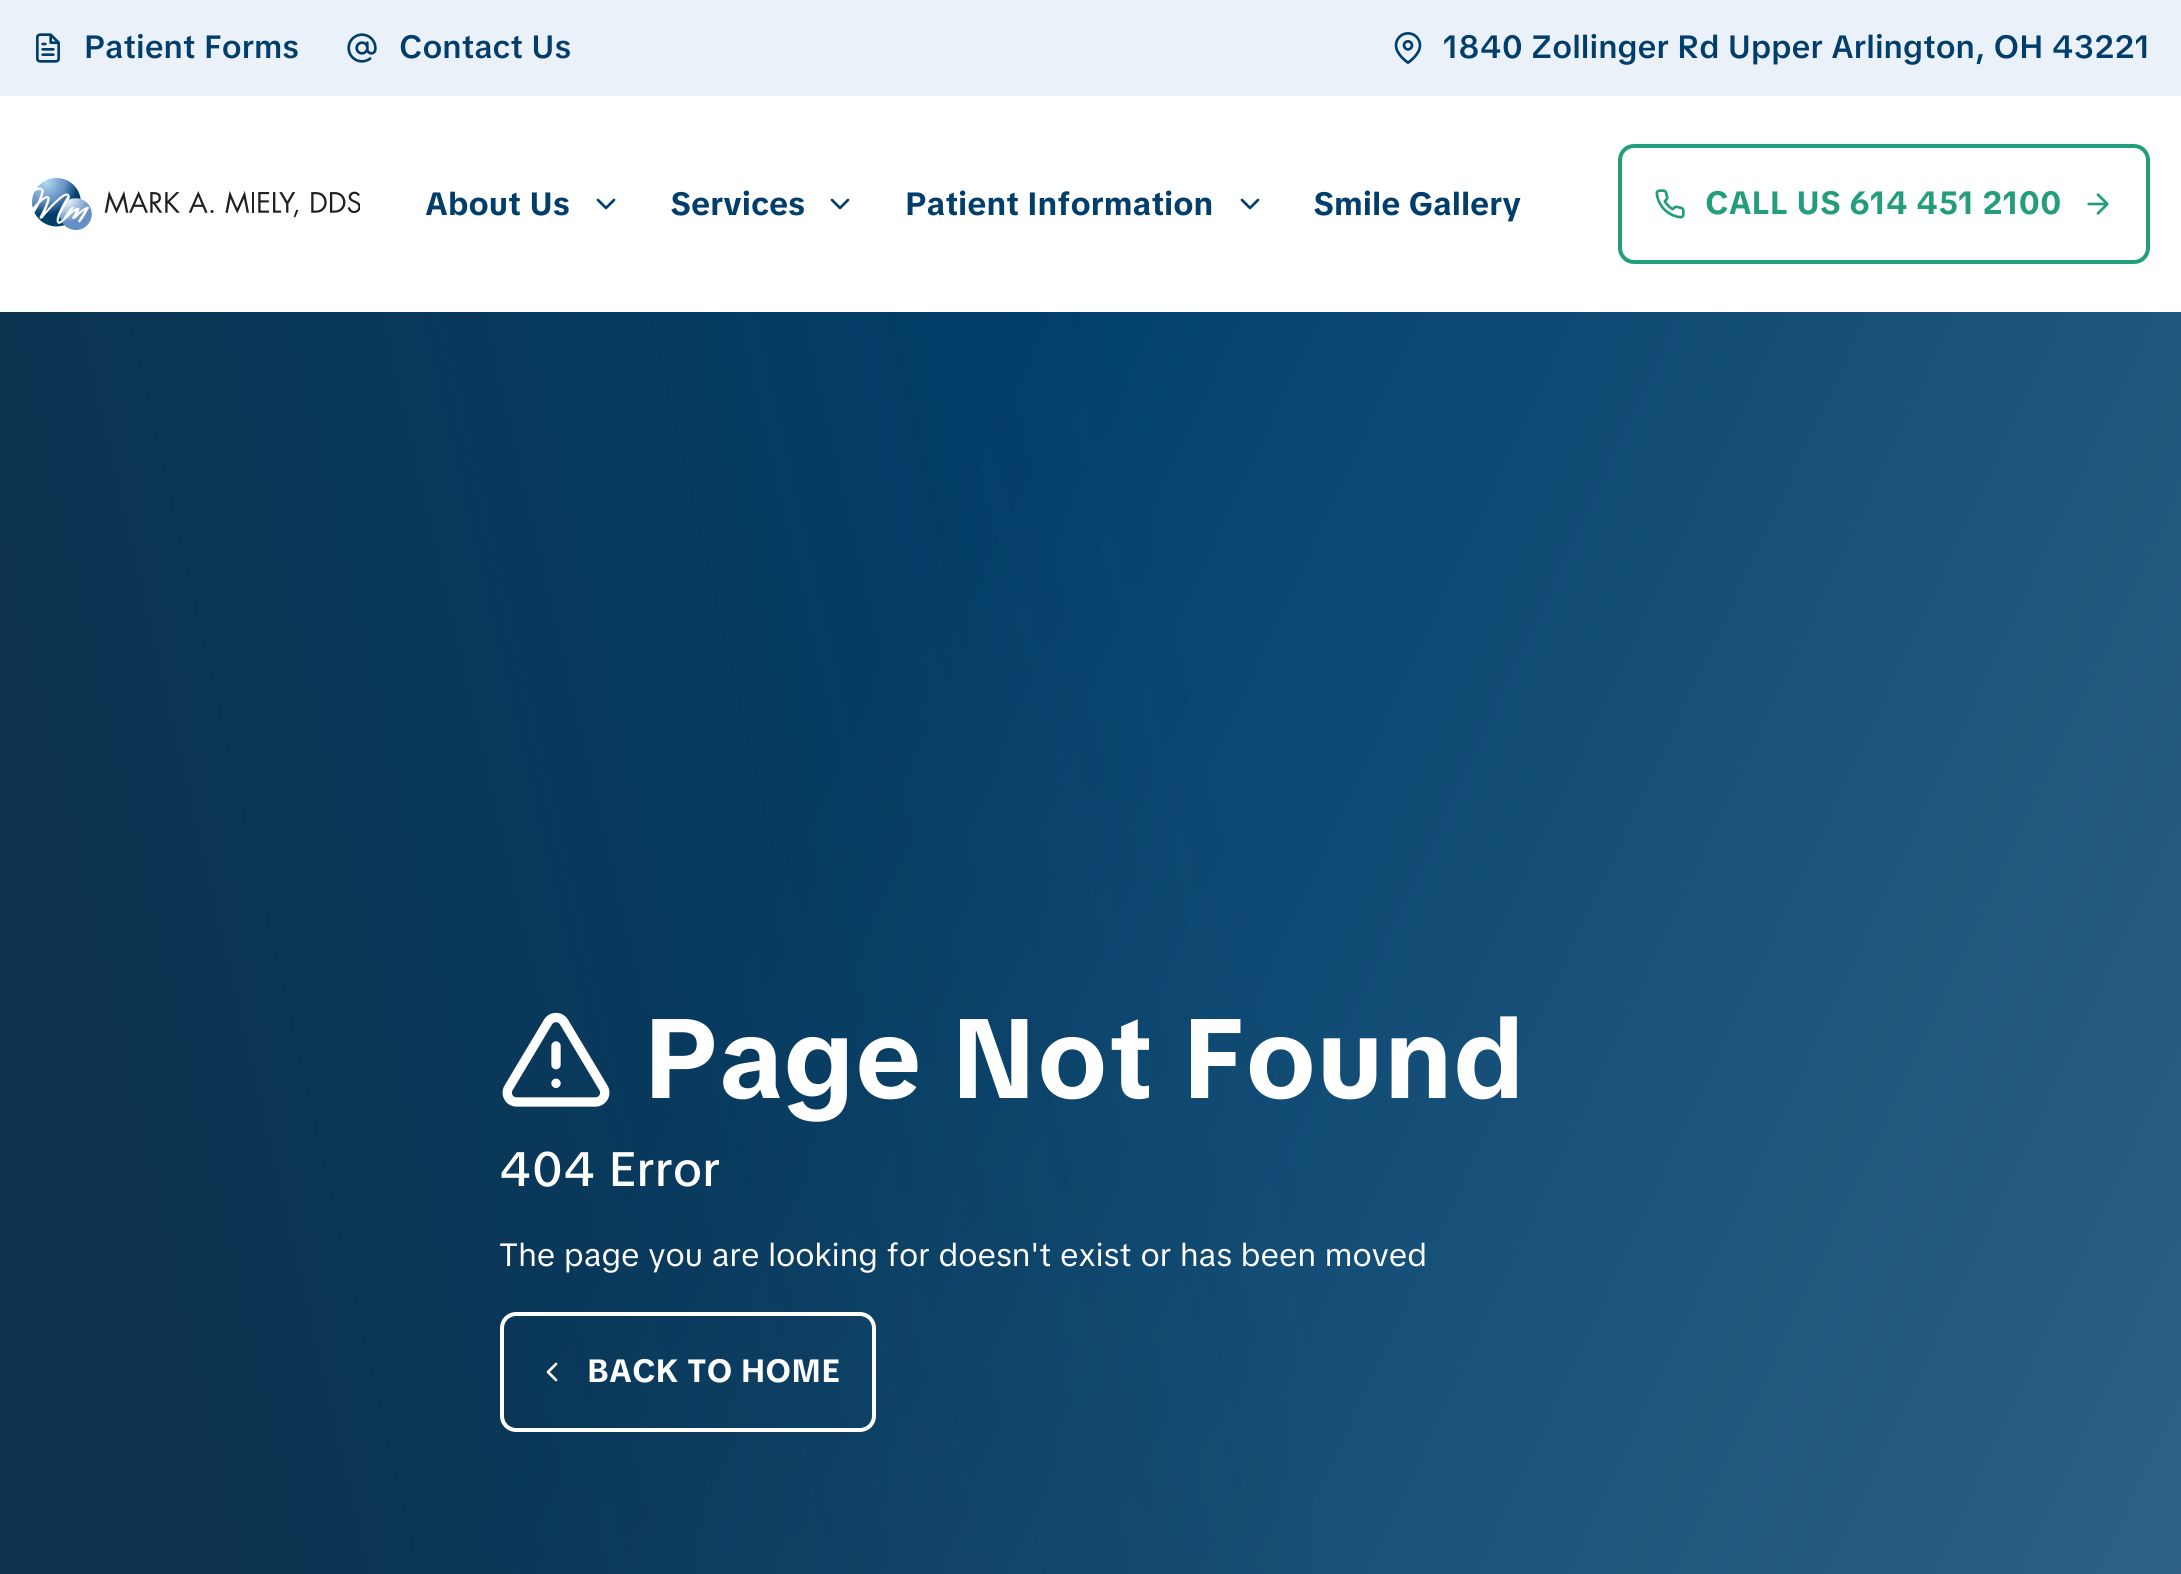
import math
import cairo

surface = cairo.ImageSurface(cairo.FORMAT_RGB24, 2181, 1574)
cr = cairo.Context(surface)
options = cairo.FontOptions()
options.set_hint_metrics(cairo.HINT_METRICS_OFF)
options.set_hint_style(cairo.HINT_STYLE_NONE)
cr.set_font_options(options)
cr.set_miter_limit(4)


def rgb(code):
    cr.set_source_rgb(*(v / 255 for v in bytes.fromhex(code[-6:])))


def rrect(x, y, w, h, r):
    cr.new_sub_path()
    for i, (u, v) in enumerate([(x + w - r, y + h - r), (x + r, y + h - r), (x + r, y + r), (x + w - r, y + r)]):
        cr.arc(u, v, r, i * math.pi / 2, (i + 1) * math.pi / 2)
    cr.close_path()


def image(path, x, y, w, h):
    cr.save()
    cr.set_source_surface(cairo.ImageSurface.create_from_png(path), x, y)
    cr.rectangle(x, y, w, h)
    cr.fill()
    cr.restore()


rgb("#ffffff")
cr.paint()
rgb("#ebf1f8")
cr.rectangle(0, 0, 2181, 96)
cr.fill()
image("img/1.png", 36, 33, 24, 30)
image("img/2.png", 347, 33, 30, 30)
image("img/3.png", 1394, 32, 28, 32)
image("img/4.png", 32, 178, 328, 52)
image("img/5.png", 596, 198, 20, 12)
image("img/5.png", 830, 198, 20, 12)
image("img/5.png", 1240, 198, 20, 12)
rrect(1620, 146, 528, 116, 14)
rgb("#249d7d")
cr.set_line_width(4)
cr.stroke()
image("img/6.png", 1655, 189, 30, 30)
image("img/7.png", 2087, 193, 22, 22)
gradient = cairo.LinearGradient(-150, 633, 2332, 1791)
gradient.add_color_stop_rgba(0.34, 0.004, 0.251, 0.424, 1)
gradient.add_color_stop_rgba(1, 0.204, 0.4, 0.537, 1)
cr.set_source(gradient)
cr.rectangle(0, 312, 2181, 1262)
cr.fill()
gradient = cairo.LinearGradient(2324, 927, -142, 1497)
gradient.add_color_stop_rgba(0.41, 0.137, 0.122, 0.125, 0)
gradient.add_color_stop_rgba(0.91, 0.137, 0.122, 0.125, 0.4)
cr.set_source(gradient)
cr.rectangle(0, 312, 1313, 1262)
cr.fill()
image("img/8.png", 502, 1012, 108, 95)
rrect(502, 1314, 372, 116, 14)
rgb("#ffffff")
cr.stroke()
image("img/9.png", 546, 1362, 12, 20)
cr.select_font_face("TikTok Sans SemiBold")
cr.set_font_size(32)
rgb("#013e6b")
for x, y, s in [
    (84, 58, "Patient Forms"),
    (399, 58, "Contact Us"),
    (1443, 58, "1840 Zollinger Rd Upper Arlington, OH 43221"),
]:
    cr.move_to(x, y)
    cr.show_text(s)
cr.select_font_face("TikTok Sans", cairo.FONT_SLANT_NORMAL, cairo.FONT_WEIGHT_BOLD)
for x, y, s in [
    (425, 215, "About Us"),
    (670, 215, "Services"),
    (905, 215, "Patient Information"),
    (1313, 215, "Smile Gallery"),
]:
    cr.move_to(x, y)
    cr.show_text(s)
rgb("#249d7d")
cr.move_to(1705, 214)
cr.show_text("CALL US 614 451 2100")
cr.set_font_size(112)
rgb("#ffffff")
cr.move_to(643, 1098)
cr.show_text("Page Not Found")
cr.select_font_face("TikTok Sans Medium")
cr.set_font_size(48)
cr.move_to(499, 1186)
cr.show_text("404 Error")
cr.select_font_face("TikTok Sans")
cr.set_font_size(32)
cr.move_to(499, 1266)
cr.show_text("The page you are looking for doesn't exist or has been moved")
cr.select_font_face("TikTok Sans", cairo.FONT_SLANT_NORMAL, cairo.FONT_WEIGHT_BOLD)
cr.move_to(587, 1382)
cr.show_text("BACK TO HOME")
surface.write_to_png("page.png")
